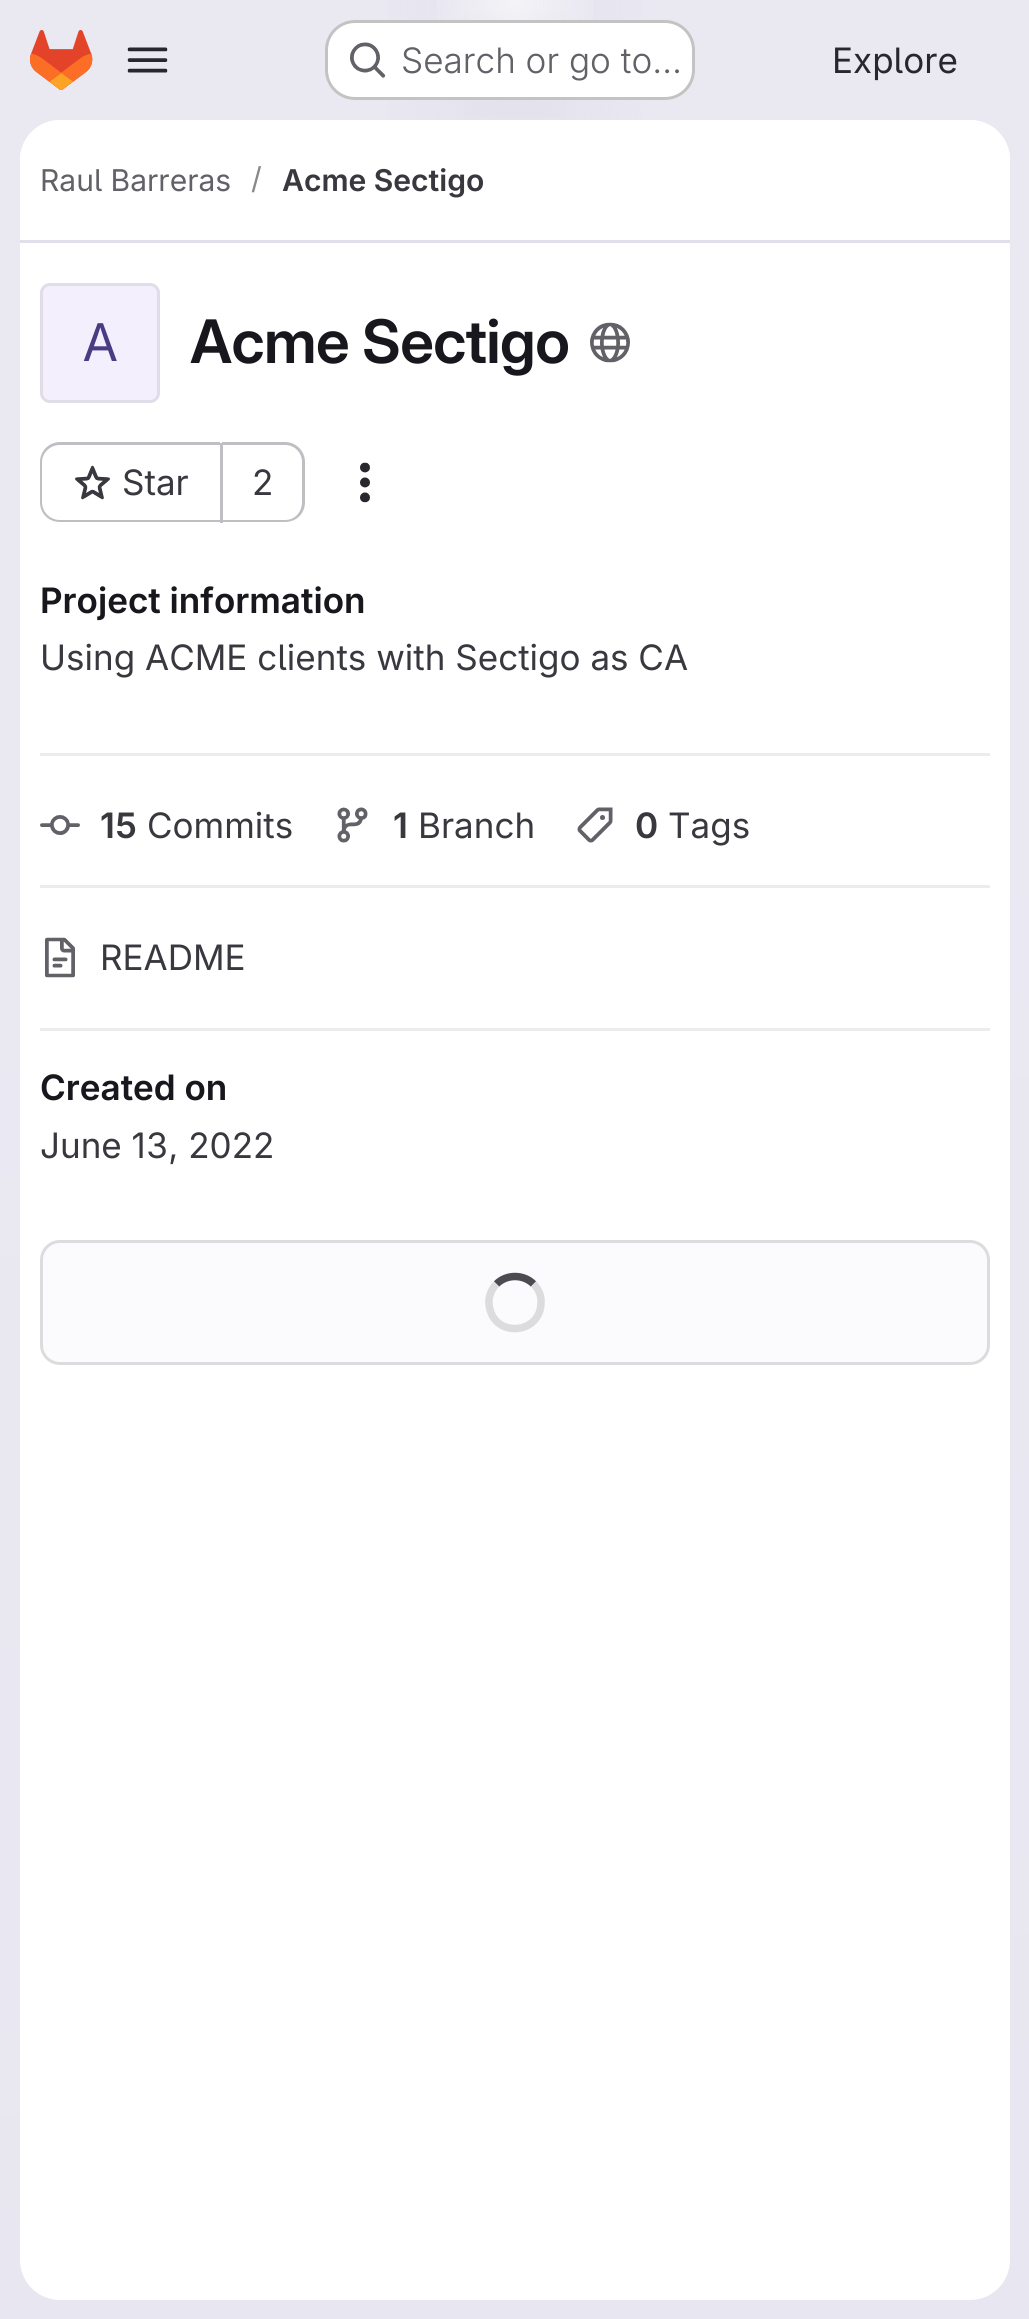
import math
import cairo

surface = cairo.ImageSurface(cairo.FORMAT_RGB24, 1029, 2319)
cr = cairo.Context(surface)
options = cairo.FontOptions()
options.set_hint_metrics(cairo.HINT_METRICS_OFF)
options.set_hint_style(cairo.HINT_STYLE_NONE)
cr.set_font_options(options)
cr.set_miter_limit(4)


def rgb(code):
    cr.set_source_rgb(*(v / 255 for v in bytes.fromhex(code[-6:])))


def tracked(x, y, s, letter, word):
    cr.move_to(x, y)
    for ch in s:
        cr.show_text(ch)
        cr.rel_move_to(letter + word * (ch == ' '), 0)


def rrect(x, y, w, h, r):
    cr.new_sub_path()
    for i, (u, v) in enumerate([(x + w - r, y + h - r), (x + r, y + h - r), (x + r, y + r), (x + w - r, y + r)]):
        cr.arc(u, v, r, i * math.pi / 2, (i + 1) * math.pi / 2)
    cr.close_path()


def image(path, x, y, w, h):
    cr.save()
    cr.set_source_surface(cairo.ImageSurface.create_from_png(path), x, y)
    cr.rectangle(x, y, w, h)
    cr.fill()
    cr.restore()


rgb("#ffffff")
cr.paint()
gradient = cairo.LinearGradient(729, 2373, 301, -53)
gradient.add_color_stop_rgba(0, 0.91, 0.902, 0.941, 1)
gradient.add_color_stop_rgba(0.7, 0.918, 0.914, 0.949, 1)
cr.set_source(gradient)
cr.rectangle(0, 0, 1029, 2319)
cr.fill()
gradient = cairo.RadialGradient(0, 0, 0, 0, 0, 1)
gradient.set_matrix(cairo.Matrix(1 / 515, 0, 0, 1 / 2320, -1 * 515 / 515, -1 * 0 / 2320))
gradient.add_color_stop_rgba(0, 0.894, 0.886, 0.929, 1)
gradient.add_color_stop_rgba(0.34, 0.894, 0.886, 0.929, 0)
cr.set_source(gradient)
cr.rectangle(388, 0, 253, 120)
cr.fill()
gradient = cairo.RadialGradient(0, 0, 0, 0, 0, 1)
gradient.set_matrix(cairo.Matrix(1 / 515, 0, 0, 1 / 2320, -1 * 515 / 515, -1 * 0 / 2320))
gradient.add_color_stop_rgba(0, 0.894, 0.886, 0.925, 1)
gradient.add_color_stop_rgba(0.24, 0.894, 0.886, 0.925, 0)
cr.set_source(gradient)
cr.rectangle(464, 13, 102, 105)
cr.fill()
gradient = cairo.RadialGradient(515, 0, 0, 515, 0, 2376)
gradient.add_color_stop_rgba(0, 1, 1, 1, 0.6)
gradient.add_color_stop_rgba(0.04, 1, 1, 1, 0)
cr.set_source(gradient)
cr.rectangle(437, 0, 156, 81)
cr.fill()
image("img/1.png", 30, 30, 63, 60)
image("img/2.png", 127, 47, 41, 26)
rgb("#ffffff")
rrect(325, 20, 370, 80, 30)
cr.fill()
rrect(326.5, 21.5, 367, 77, 28.5)
cr.set_source_rgba(0.02, 0.02, 0.024, 0.24)
cr.set_line_width(3)
cr.stroke()
image("img/3.png", 350, 42, 36, 36)
rgb("#ffffff")
rrect(20, 120, 990, 2180, 40)
cr.fill()
cr.new_path()
cr.move_to(60, 120)
cr.line_to(970, 120)
cr.curve_to(992, 120, 1010, 138, 1010, 160)
cr.line_to(1010, 243)
cr.line_to(20, 243)
cr.line_to(20, 160)
cr.curve_to(20, 138, 38, 120, 60, 120)
cr.close_path()
cr.fill()
rgb("#e1dfec")
cr.rectangle(20, 240, 990, 3)
cr.fill()
rgb("#f3effc")
rrect(40, 283, 120, 120, 10)
cr.fill()
rrect(41.5, 284.5, 117, 117, 8.5)
cr.set_source_rgba(0.02, 0.02, 0.024, 0.08)
cr.stroke()
image("img/4.png", 590, 322, 40, 41)
rgb("#bfbfc3")
cr.set_fill_rule(cairo.FILL_RULE_EVEN_ODD)
cr.new_path()
cr.move_to(60, 442)
cr.line_to(220, 442)
cr.line_to(220, 522)
cr.line_to(60, 522)
cr.curve_to(49, 522, 40, 514, 40, 502)
cr.line_to(40, 462)
cr.curve_to(40, 451, 49, 442, 60, 442)
cr.close_path()
cr.move_to(60, 445)
cr.line_to(220, 445)
cr.line_to(220, 520)
cr.line_to(60, 520)
cr.curve_to(50, 520, 42, 512, 42, 502)
cr.line_to(42, 462)
cr.curve_to(42, 453, 50, 445, 60, 445)
cr.close_path()
cr.fill()
image("img/5.png", 75, 465, 35, 35)
cr.new_path()
cr.move_to(222, 442)
cr.line_to(285, 442)
cr.curve_to(296, 442, 305, 451, 305, 462)
cr.line_to(305, 502)
cr.curve_to(305, 514, 296, 522, 285, 522)
cr.line_to(222, 522)
cr.close_path()
cr.move_to(222, 445)
cr.line_to(285, 445)
cr.curve_to(295, 445, 302, 453, 302, 462)
cr.line_to(302, 502)
cr.curve_to(302, 512, 295, 520, 285, 520)
cr.line_to(222, 520)
cr.close_path()
cr.fill()
cr.rectangle(220, 443, 3, 80)
cr.fill()
image("img/6.png", 360, 462, 10, 41)
rgb("#ececef")
cr.rectangle(40, 753, 950, 3)
cr.fill()
cr.rectangle(40, 885, 950, 3)
cr.fill()
image("img/7.png", 40, 815, 40, 20)
image("img/8.png", 337, 807, 31, 36)
image("img/9.png", 577, 807, 36, 36)
cr.rectangle(40, 1028, 950, 3)
cr.fill()
image("img/10.png", 45, 937, 30, 41)
rgb("#fbfafd")
rrect(41.5, 1241.5, 947, 122, 18.5)
cr.fill_preserve()
rgb("#dcdcde")
cr.stroke()
cr.new_path()
cr.move_to(496.5, 1284)
cr.curve_to(506.5, 1274, 523.5, 1274, 533.5, 1284)
rgb("#4c4b51")
cr.set_line_width(7.5)
cr.stroke()
cr.new_path()
cr.move_to(533.5, 1284)
cr.curve_to(538.5, 1289, 541.5, 1295.5, 541, 1302.5)
cr.curve_to(541, 1334, 495.5, 1338.5, 489.5, 1307.5)
cr.curve_to(487.5, 1299, 490.5, 1290, 496.5, 1284)
rgb("#dcdcde")
cr.stroke()
cr.select_font_face("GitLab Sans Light")
cr.set_font_size(35)
rgb("#626168")
cr.move_to(401, 73)
cr.show_text("Search or go to…")
cr.select_font_face("GitLab Sans")
rgb("#28272d")
cr.move_to(832, 73)
cr.show_text("Explore")
cr.set_font_size(30)
rgb("#626168")
cr.move_to(40, 191)
cr.show_text("Raul Barreras")
rgb("#89888d")
cr.move_to(251, 189)
cr.show_text("/")
cr.select_font_face("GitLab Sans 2 SemiBold")
rgb("#3a383f")
cr.move_to(282, 191)
cr.show_text("Acme Sectigo")
cr.select_font_face("GitLab Sans 2")
cr.set_font_size(52)
rgb("#493c83")
cr.move_to(83, 361)
cr.show_text("A")
cr.select_font_face("GitLab Sans SemiBold")
cr.set_font_size(60)
rgb("#18171d")
tracked(190, 363, "Acme Sectigo", -0.6, 0)
cr.select_font_face("GitLab Sans")
cr.set_font_size(35)
rgb("#3a383f")
cr.move_to(122, 495)
cr.show_text("Star")
cr.move_to(252, 495)
cr.show_text("2")
cr.select_font_face("GitLab Sans 2 SemiBold")
rgb("#18171d")
cr.move_to(40, 613)
cr.show_text("Project information")
cr.select_font_face("GitLab Sans")
rgb("#3a383f")
cr.move_to(40, 670)
cr.show_text("Using ACME clients with Sectigo as CA")
cr.select_font_face("GitLab Sans 2 SemiBold")
cr.move_to(100, 838)
cr.show_text("15")
cr.select_font_face("GitLab Sans")
cr.move_to(147, 838)
cr.show_text("Commits")
cr.select_font_face("GitLab Sans 2 SemiBold")
cr.move_to(393, 838)
cr.show_text("1")
cr.select_font_face("GitLab Sans")
cr.move_to(418, 838)
cr.show_text("Branch")
cr.select_font_face("GitLab Sans 2 SemiBold")
cr.move_to(635, 838)
cr.show_text("0")
cr.select_font_face("GitLab Sans")
cr.move_to(668, 838)
cr.show_text("Tags")
cr.move_to(100, 970)
cr.show_text("README")
cr.select_font_face("GitLab Sans 2 SemiBold")
rgb("#18171d")
cr.move_to(40, 1100)
cr.show_text("Created on")
cr.select_font_face("GitLab Sans")
rgb("#3a383f")
cr.move_to(40, 1158)
cr.show_text("June 13, 2022")
surface.write_to_png("page.png")
